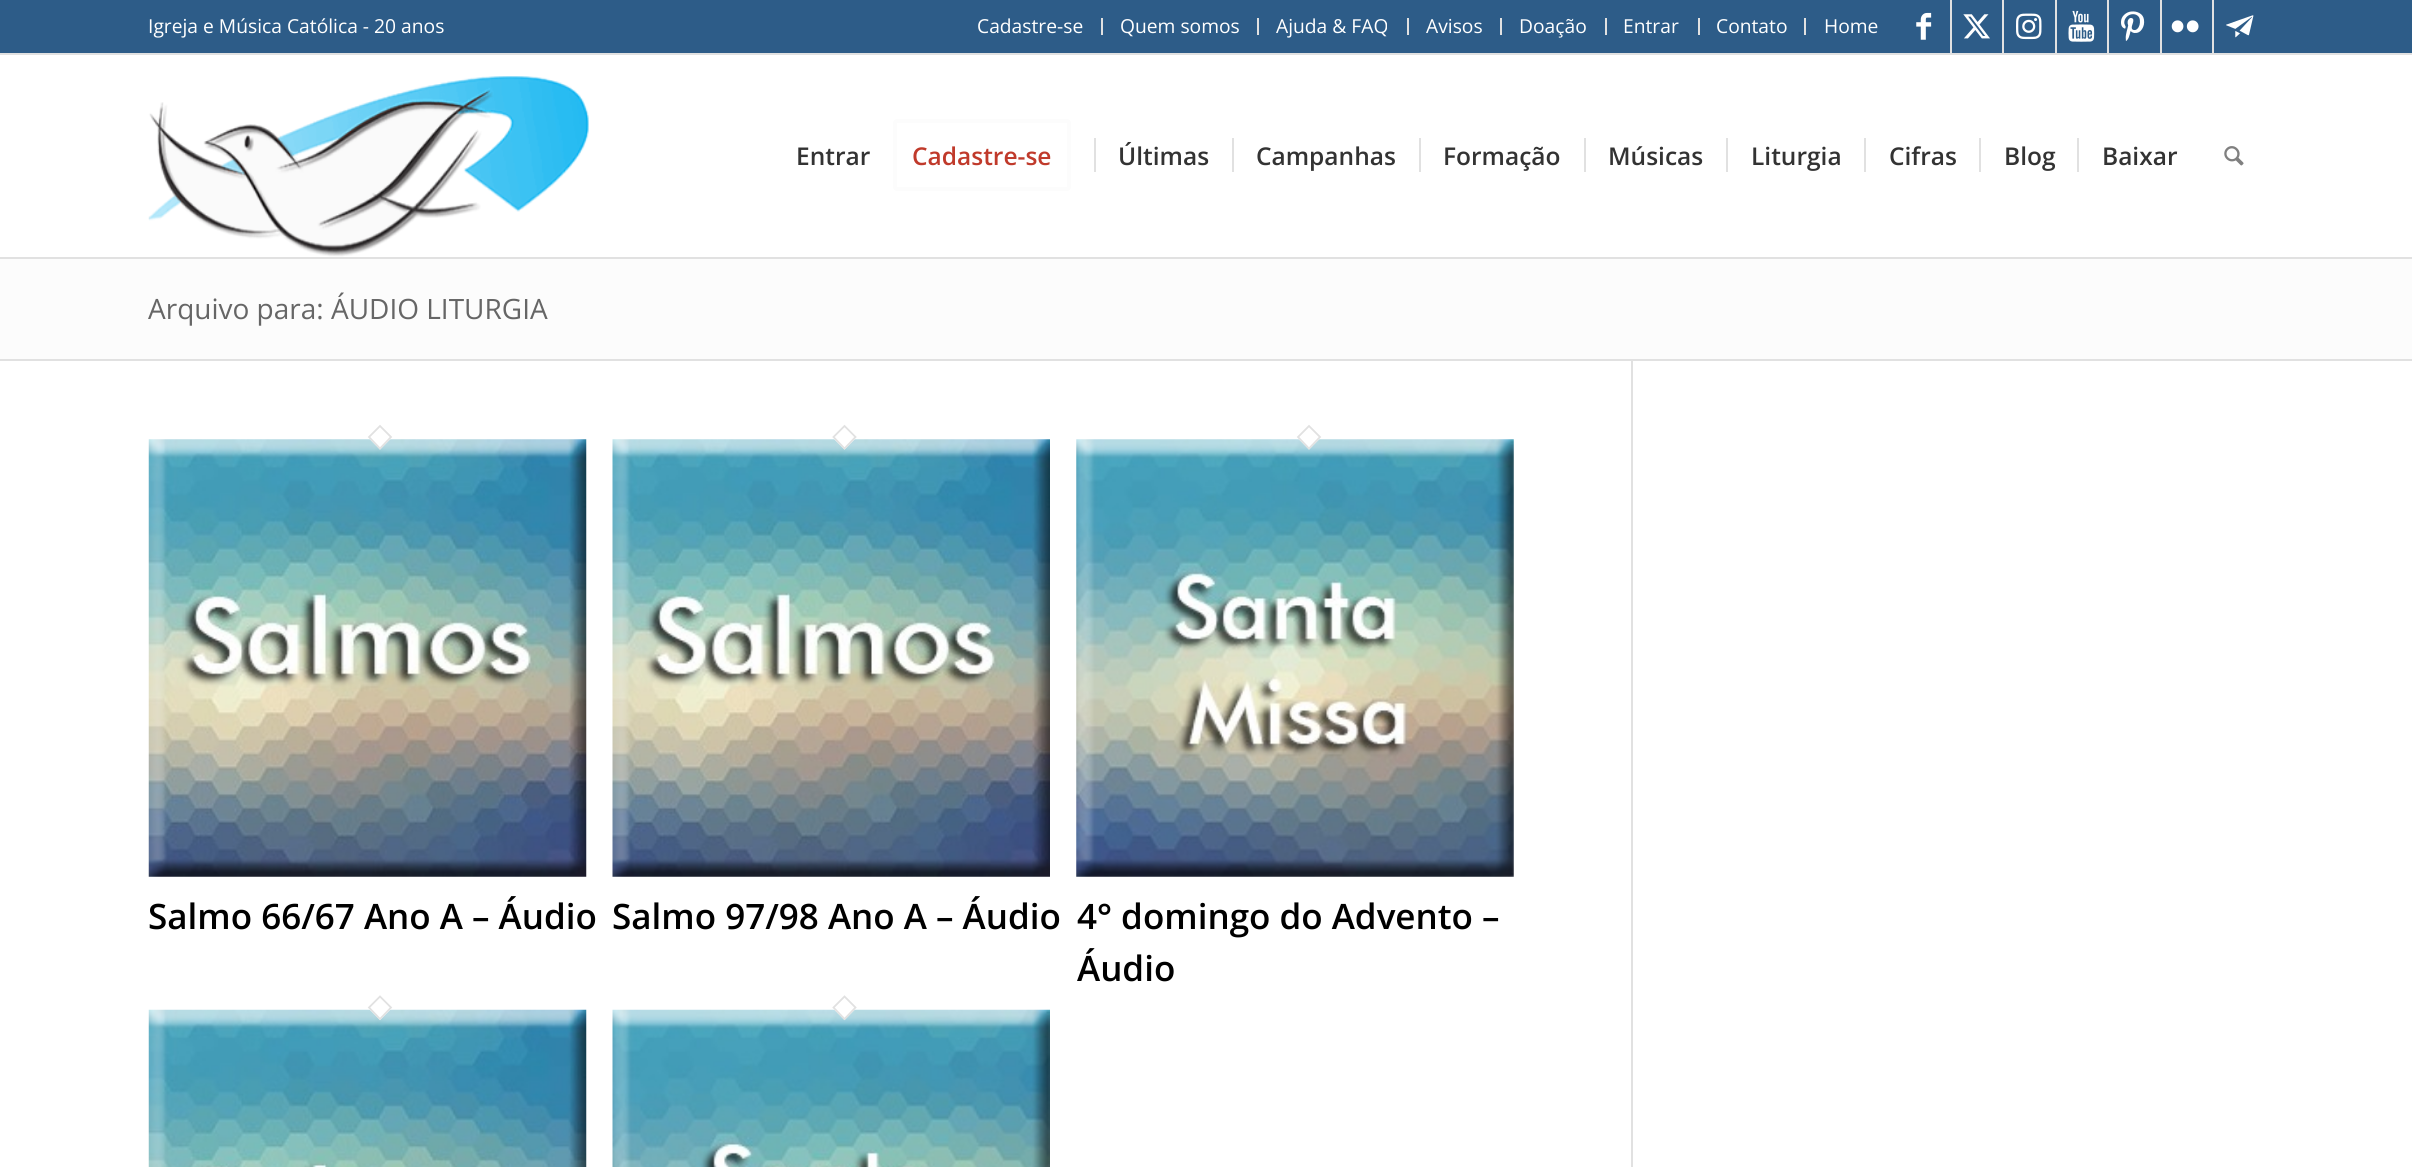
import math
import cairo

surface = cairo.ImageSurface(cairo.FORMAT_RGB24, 2412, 1167)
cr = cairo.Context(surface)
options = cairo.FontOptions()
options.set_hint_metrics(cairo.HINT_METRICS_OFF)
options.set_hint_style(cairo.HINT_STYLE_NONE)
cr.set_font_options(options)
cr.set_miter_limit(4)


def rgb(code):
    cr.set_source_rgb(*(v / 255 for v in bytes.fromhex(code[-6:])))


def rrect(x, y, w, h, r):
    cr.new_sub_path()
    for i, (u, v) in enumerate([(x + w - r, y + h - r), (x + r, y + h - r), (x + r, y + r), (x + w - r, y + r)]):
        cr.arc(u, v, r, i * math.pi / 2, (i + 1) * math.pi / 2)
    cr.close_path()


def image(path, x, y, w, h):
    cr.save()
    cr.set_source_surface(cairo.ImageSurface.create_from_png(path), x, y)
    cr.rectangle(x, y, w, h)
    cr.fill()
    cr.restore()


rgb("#ffffff")
cr.paint()
for x, y, w, h, color in [
    (0, 0, 2412, 53, "#2d5c88"),
    (0, 53, 2412, 2, "#e1e1e1"),
    (1101, 18, 2, 17, "#e1e1e1"),
    (1257, 18, 2, 17, "#e1e1e1"),
    (1407, 18, 2, 17, "#e1e1e1"),
    (1500, 18, 2, 17, "#e1e1e1"),
    (1605, 18, 2, 17, "#e1e1e1"),
    (1698, 18, 2, 17, "#e1e1e1"),
    (1804, 18, 2, 17, "#e1e1e1"),
    (1950, 0, 2, 53, "#e1e1e1"),
]:
    rgb(color)
    cr.rectangle(x, y, w, h)
    cr.fill()
image("img/1.png", 1916, 12, 16, 28)
cr.rectangle(2002, 0, 2, 53)
cr.fill()
image("img/2.png", 1963, 14, 27, 25)
cr.rectangle(2055, 0, 2, 53)
cr.fill()
image("img/3.png", 2016, 13, 26, 27)
cr.rectangle(2107, 0, 2, 53)
cr.fill()
image("img/4.png", 2068, 10, 27, 32)
cr.rectangle(2160, 0, 2, 53)
cr.fill()
image("img/5.png", 2121, 11, 24, 30)
cr.rectangle(2212, 0, 2, 53)
cr.fill()
image("img/6.png", 2171, 20, 28, 13)
image("img/7.png", 2226, 15, 28, 23)
cr.rectangle(0, 257, 2412, 2)
cr.fill()
image("img/8.png", 148, 76, 441, 181)
rrect(895, 121, 174, 68, 2)
rgb("#fcfcfc")
cr.set_line_width(4)
cr.stroke()
for x, y, w, h, color in [
    (1094, 138, 2, 34, "#e1e1e1"),
    (1232, 138, 2, 34, "#e1e1e1"),
    (1419, 138, 2, 34, "#e1e1e1"),
    (1584, 138, 2, 34, "#e1e1e1"),
    (1726, 138, 2, 34, "#e1e1e1"),
    (1864, 138, 2, 34, "#e1e1e1"),
    (1979, 138, 2, 34, "#e1e1e1"),
    (2077, 138, 2, 34, "#e1e1e1"),
]:
    rgb(color)
    cr.rectangle(x, y, w, h)
    cr.fill()
image("img/9.png", 2224, 146, 20, 20)
for x, y, w, h, color in [
    (0, 259, 2412, 100, "#fcfcfc"),
    (0, 359, 2412, 2, "#e1e1e1"),
    (1631, 361, 2, 806, "#e1e1e1"),
]:
    rgb(color)
    cr.rectangle(x, y, w, h)
    cr.fill()
image("img/10.png", 148, 439, 439, 438)
rgb("#ffffff")
cr.new_path()
cr.move_to(380, 425)
cr.line_to(392.5, 437)
cr.line_to(380, 449.5)
cr.line_to(367.5, 437)
cr.close_path()
cr.fill()
cr.new_path()
cr.move_to(380, 426)
cr.line_to(391, 437)
cr.line_to(380, 448.5)
cr.line_to(369, 437)
cr.close_path()
rgb("#e1e1e1")
cr.set_line_width(1.8)
cr.stroke()
image("img/11.png", 612, 439, 438, 438)
rgb("#ffffff")
cr.new_path()
cr.move_to(844.5, 425)
cr.line_to(857, 437)
cr.line_to(844.5, 449.5)
cr.line_to(832, 437)
cr.close_path()
cr.fill()
cr.new_path()
cr.move_to(844.5, 426)
cr.line_to(855.5, 437)
cr.line_to(844.5, 448.5)
cr.line_to(833.5, 437)
cr.close_path()
rgb("#e1e1e1")
cr.stroke()
image("img/12.png", 1076, 439, 438, 438)
rgb("#ffffff")
cr.new_path()
cr.move_to(1309, 425)
cr.line_to(1321.5, 437)
cr.line_to(1309, 449.5)
cr.line_to(1296.5, 437)
cr.close_path()
cr.fill()
cr.new_path()
cr.move_to(1309, 426)
cr.line_to(1320, 437)
cr.line_to(1309, 448.5)
cr.line_to(1298, 437)
cr.close_path()
rgb("#e1e1e1")
cr.stroke()
image("img/13.png", 148, 1009, 439, 158)
rgb("#ffffff")
cr.new_path()
cr.move_to(380, 995.5)
cr.line_to(392.5, 1007.5)
cr.line_to(380, 1020)
cr.line_to(367.5, 1007.5)
cr.close_path()
cr.fill()
cr.new_path()
cr.move_to(380, 996.5)
cr.line_to(391, 1007.5)
cr.line_to(380, 1019)
cr.line_to(369, 1007.5)
cr.close_path()
rgb("#e1e1e1")
cr.stroke()
image("img/14.png", 612, 1009, 438, 158)
rgb("#ffffff")
cr.new_path()
cr.move_to(844.5, 995.5)
cr.line_to(857, 1007.5)
cr.line_to(844.5, 1020)
cr.line_to(832, 1007.5)
cr.close_path()
cr.fill()
cr.new_path()
cr.move_to(844.5, 996.5)
cr.line_to(855.5, 1007.5)
cr.line_to(844.5, 1019)
cr.line_to(833.5, 1007.5)
cr.close_path()
rgb("#e1e1e1")
cr.stroke()
cr.select_font_face("Open Sans")
cr.set_font_size(19.25)
rgb("#ffffff")
for x, y, s in [
    (148, 33, "Igreja e Música Católica - 20 anos"),
    (977, 33, "Cadastre-se"),
    (1120, 33, "Quem somos"),
    (1276, 33, "Ajuda & FAQ"),
    (1426, 33, "Avisos"),
    (1519, 33, "Doação"),
    (1623, 33, "Entrar"),
    (1716, 33, "Contato"),
    (1824, 33, "Home"),
]:
    cr.move_to(x, y)
    cr.show_text(s)
cr.select_font_face("Open Sans SemiBold")
cr.set_font_size(24.5)
rgb("#333333")
cr.move_to(796, 165)
cr.show_text("Entrar")
rgb("#c03a2b")
cr.move_to(912, 165)
cr.show_text("Cadastre-se")
rgb("#333333")
for x, y, s in [
    (1118, 165, "Últimas"),
    (1256, 165, "Campanhas"),
    (1443, 165, "Formação"),
    (1608, 165, "Músicas"),
    (1751, 165, "Liturgia"),
    (1889, 165, "Cifras"),
    (2004, 165, "Blog"),
    (2102, 165, "Baixar"),
]:
    cr.move_to(x, y)
    cr.show_text(s)
cr.select_font_face("Open Sans")
cr.set_font_size(28)
rgb("#666666")
cr.move_to(148, 319)
cr.show_text("Arquivo para: ÁUDIO LITURGIA")
cr.select_font_face("Open Sans SemiBold")
cr.set_font_size(35)
rgb("#000000")
for x, y, s in [
    (148, 929, "Salmo 66/67 Ano A – Áudio"),
    (612, 929, "Salmo 97/98 Ano A – Áudio"),
    (1077, 929, "4° domingo do Advento –"),
    (1077, 981, "Áudio"),
]:
    cr.move_to(x, y)
    cr.show_text(s)
surface.write_to_png("page.png")
